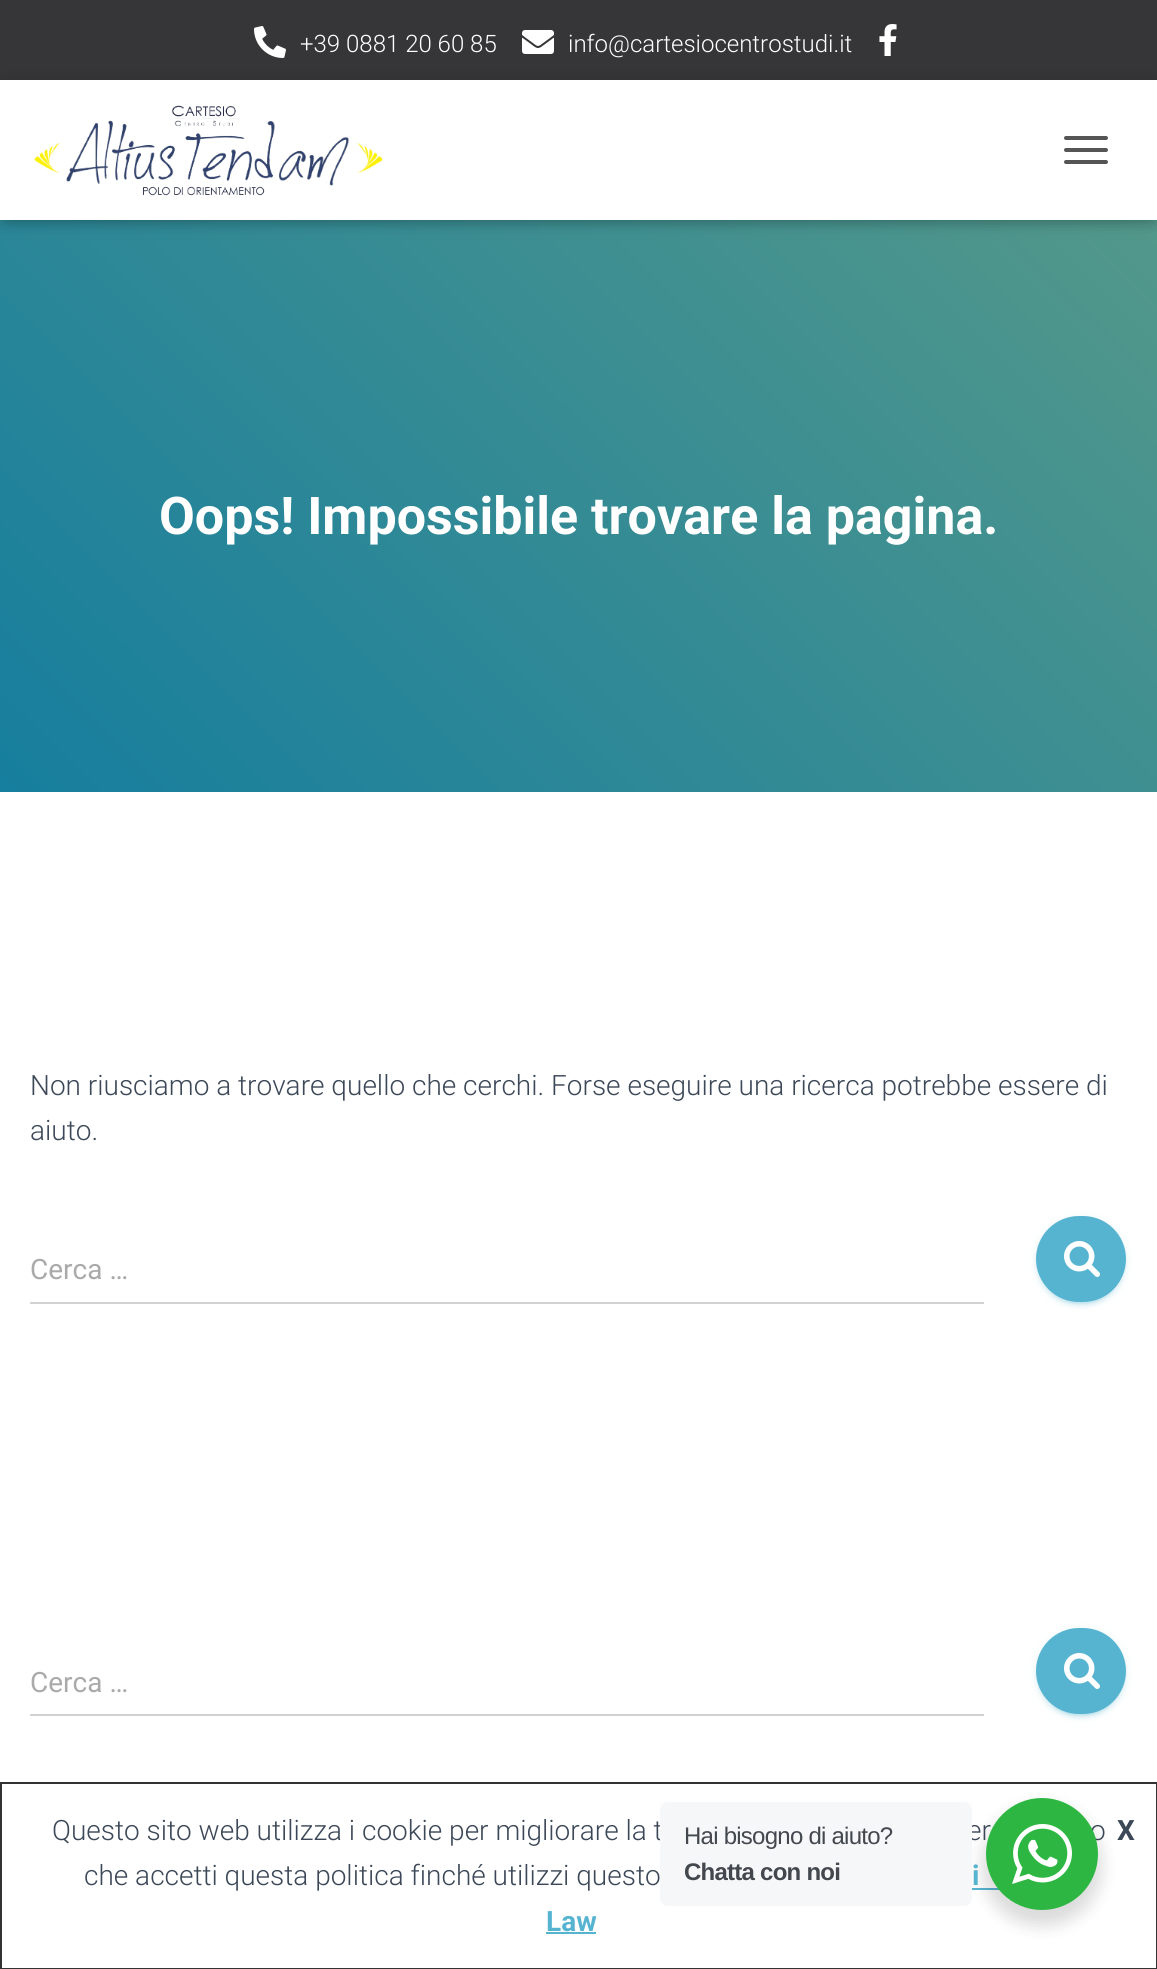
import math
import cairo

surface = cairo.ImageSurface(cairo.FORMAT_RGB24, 1157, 1969)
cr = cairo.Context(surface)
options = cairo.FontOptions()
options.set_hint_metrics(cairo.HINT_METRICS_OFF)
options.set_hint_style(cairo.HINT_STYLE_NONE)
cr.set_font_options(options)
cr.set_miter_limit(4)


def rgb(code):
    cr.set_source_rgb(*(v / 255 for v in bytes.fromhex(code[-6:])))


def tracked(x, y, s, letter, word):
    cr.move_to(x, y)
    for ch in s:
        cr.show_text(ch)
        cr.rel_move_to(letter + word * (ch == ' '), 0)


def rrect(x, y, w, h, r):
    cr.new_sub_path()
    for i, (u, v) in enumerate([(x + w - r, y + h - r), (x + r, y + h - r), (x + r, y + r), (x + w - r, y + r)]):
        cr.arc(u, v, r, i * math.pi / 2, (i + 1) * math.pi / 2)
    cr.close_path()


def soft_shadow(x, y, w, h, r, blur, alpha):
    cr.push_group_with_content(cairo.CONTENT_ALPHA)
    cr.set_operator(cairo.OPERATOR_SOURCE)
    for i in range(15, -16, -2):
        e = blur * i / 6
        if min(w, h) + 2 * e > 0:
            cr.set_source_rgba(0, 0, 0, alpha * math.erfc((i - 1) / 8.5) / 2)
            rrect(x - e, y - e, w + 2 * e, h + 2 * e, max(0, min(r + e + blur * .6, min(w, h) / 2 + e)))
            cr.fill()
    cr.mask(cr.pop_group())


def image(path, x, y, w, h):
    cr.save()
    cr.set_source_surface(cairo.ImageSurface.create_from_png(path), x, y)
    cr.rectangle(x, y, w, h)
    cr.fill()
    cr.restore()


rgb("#ffffff")
cr.paint()
rgb("#363537")
cr.rectangle(0, 0, 1157, 80)
cr.fill()
image("img/1.png", 254, 26, 32, 32)
image("img/2.png", 522, 30, 32, 24)
image("img/3.png", 879, 24, 18, 32)
gradient = cairo.LinearGradient(112, 904, 1047, -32)
gradient.add_color_stop_rgba(0, 0.086, 0.494, 0.62, 1)
gradient.add_color_stop_rgba(1, 0.345, 0.604, 0.537, 1)
cr.set_source(gradient)
cr.rectangle(0, 220, 1157, 572)
cr.fill()
rgb("#000000")
soft_shadow(4, 92, 1150, 132, 0, 5, 0.1)
soft_shadow(0, 82, 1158, 140, 0, 10, 0.12)
soft_shadow(12, 94, 1134, 116, 0, 10, 0.42)
rgb("#ffffff")
cr.rectangle(0, 80, 1157, 140)
cr.fill()
image("img/4.png", 34, 105, 349, 91)
rgb("#555555")
rrect(1064, 136, 44, 4, 2)
cr.fill()
rrect(1064, 148, 44, 4, 2)
cr.fill()
rrect(1064, 160, 44, 4, 2)
cr.fill()
rgb("#d2d2d2")
cr.rectangle(30, 1302, 954, 2)
cr.fill()
rgb("#57b4d1")
soft_shadow(1036, 1218, 90, 86, 43, 5, 0.12)
soft_shadow(1040, 1226, 82, 78, 39, 1, 0.2)
soft_shadow(1036, 1220, 90, 86, 43, 2, 0.14)
rgb("#57b4d1")
rrect(1036, 1216, 90, 86, 43)
cr.fill()
image("img/5.png", 1064, 1241, 36, 36)
rgb("#d2d2d2")
cr.rectangle(30, 1714, 954, 2)
cr.fill()
rgb("#57b4d1")
soft_shadow(1036, 1630, 90, 86, 43, 5, 0.12)
soft_shadow(1040, 1638, 82, 78, 39, 1, 0.2)
soft_shadow(1036, 1632, 90, 86, 43, 2, 0.14)
rgb("#57b4d1")
rrect(1036, 1628, 90, 86, 43)
cr.fill()
image("img/5.png", 1064, 1653, 36, 36)
cr.rectangle(1, 1783, 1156, 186)
rgb("#333333")
cr.stroke()
rgb("#57b4d1")
cr.rectangle(972, 1888, 28, 2)
cr.fill()
cr.rectangle(546, 1932, 50, 2)
cr.fill()
rgb("#000000")
soft_shadow(982, 1806, 120, 120, 60, 8, 0.14)
cr.select_font_face("Roboto Light")
cr.set_font_size(24)
rgb("#ffffff")
cr.move_to(300, 52)
cr.show_text("+39 0881 20 60 85")
cr.move_to(568, 52)
cr.show_text("info@cartesiocentrostudi.it")
cr.select_font_face("Roboto", cairo.FONT_SLANT_NORMAL, cairo.FONT_WEIGHT_BOLD)
cr.set_font_size(52)
cr.move_to(159, 534)
cr.show_text("Oops! Impossibile trovare la pagina.")
cr.select_font_face("Roboto Light")
cr.set_font_size(28)
rgb("#3c4858")
cr.move_to(30, 1095)
cr.show_text("Non riusciamo a trovare quello che cerchi. Forse eseguire una ricerca potrebbe essere di")
cr.move_to(30, 1140)
cr.show_text("aiuto.")
cr.select_font_face("Roboto")
rgb("#aaaaaa")
cr.move_to(30, 1279)
cr.show_text("Cerca …")
cr.move_to(30, 1692)
cr.show_text("Cerca …")
cr.select_font_face("Roboto Light")
rgb("#3c4858")
for x, y, s in [
    (52, 1840, "Questo sito web utilizza i cookie per migliorare la t"),
    (967, 1840, "er"),
    (1090, 1840, "o"),
]:
    cr.move_to(x, y)
    cr.show_text(s)
cr.select_font_face("Roboto", cairo.FONT_SLANT_NORMAL, cairo.FONT_WEIGHT_BOLD)
cr.move_to(1117, 1840)
cr.show_text("X")
cr.select_font_face("Roboto Light")
cr.move_to(84, 1885)
cr.show_text("che accetti questa politica finché utilizzi questo")
cr.select_font_face("Roboto", cairo.FONT_SLANT_NORMAL, cairo.FONT_WEIGHT_BOLD)
rgb("#57b4d1")
cr.move_to(972, 1885)
cr.show_text("i")
cr.move_to(546, 1931)
cr.show_text("Law")
rgb("#f5f7f9")
rrect(660, 1802, 312, 104, 8)
cr.fill()
cr.select_font_face("Liberation Sans")
cr.set_font_size(24)
rgb("#43474e")
tracked(684, 1844, "Hai bisogno di aiuto?", -0.75, 0)
cr.select_font_face("Liberation Sans", cairo.FONT_SLANT_NORMAL, cairo.FONT_WEIGHT_BOLD)
tracked(684, 1880, "Chatta con noi", -0.75, 0)
rgb("#2db742")
cr.new_path()
cr.arc(1042, 1854, 56, 0, 2 * math.pi)
cr.fill()
image("img/6.png", 1012, 1824, 60, 60)
surface.write_to_png("page.png")
